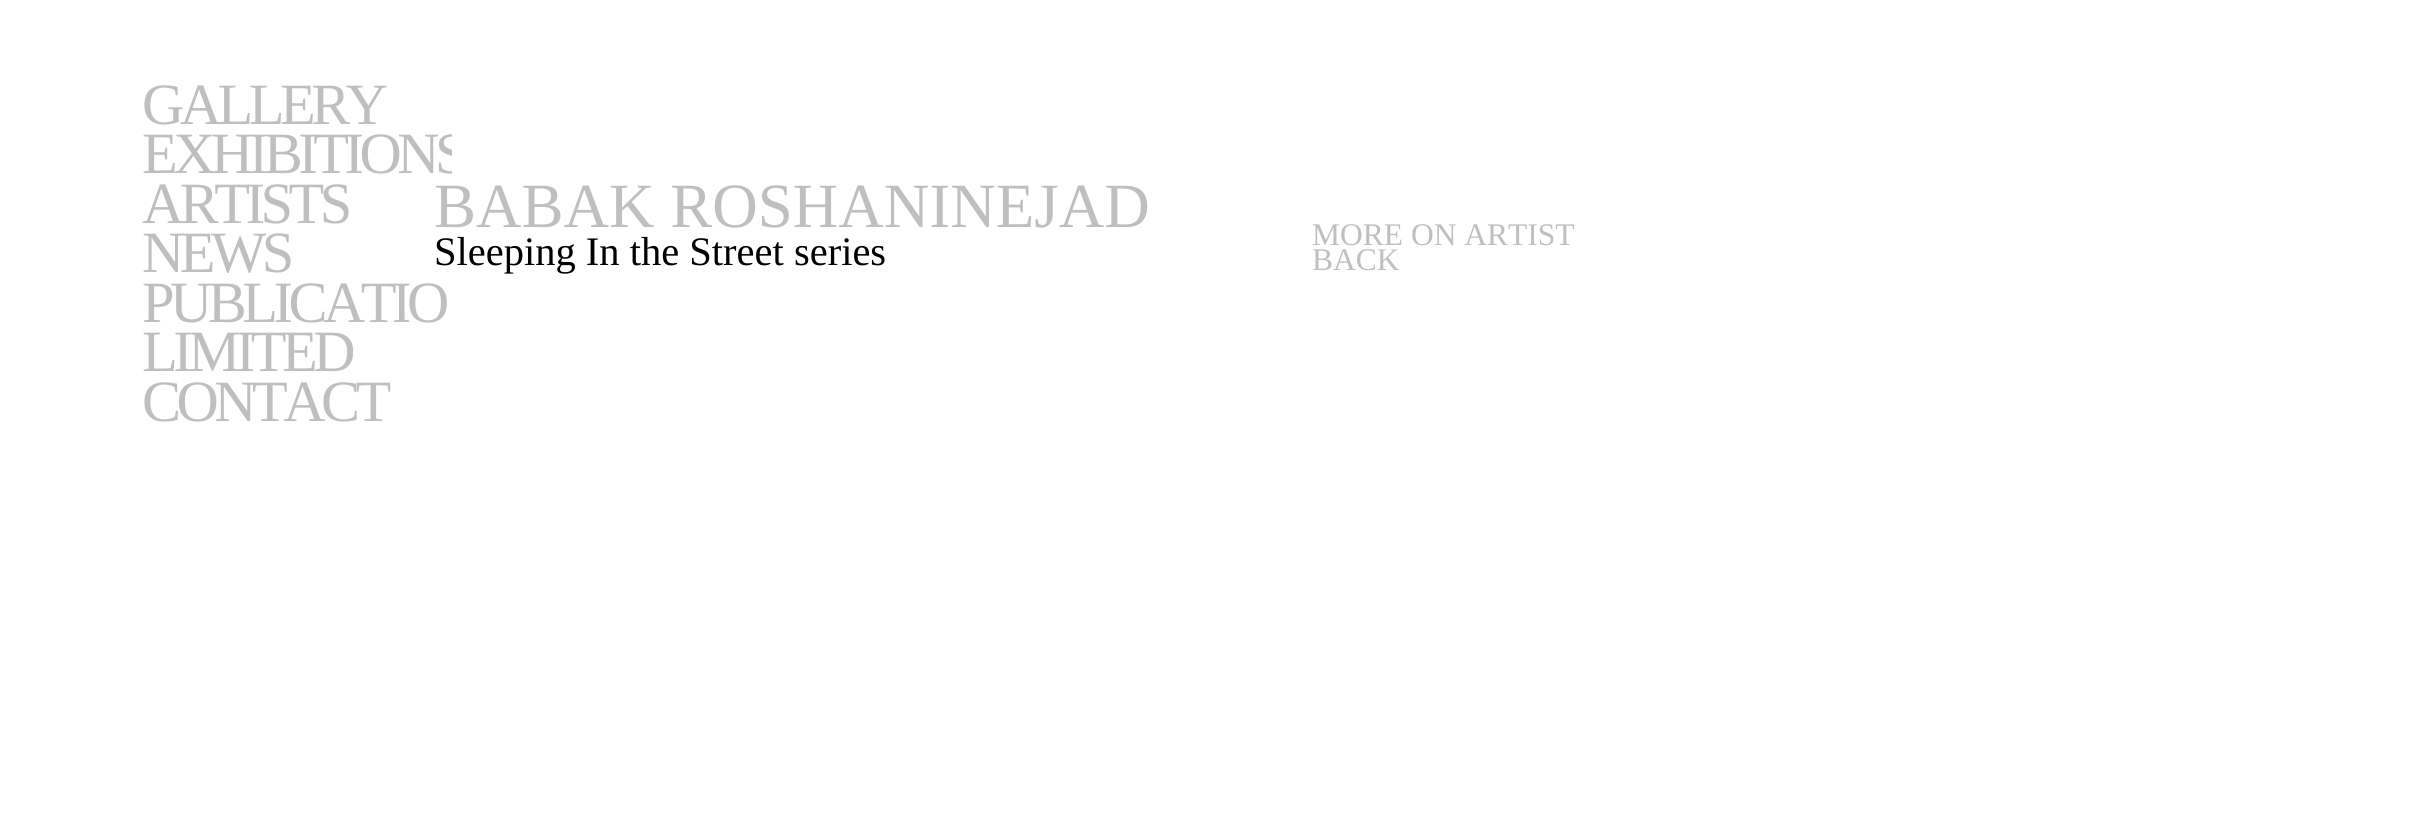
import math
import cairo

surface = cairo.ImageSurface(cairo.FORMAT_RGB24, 2412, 832)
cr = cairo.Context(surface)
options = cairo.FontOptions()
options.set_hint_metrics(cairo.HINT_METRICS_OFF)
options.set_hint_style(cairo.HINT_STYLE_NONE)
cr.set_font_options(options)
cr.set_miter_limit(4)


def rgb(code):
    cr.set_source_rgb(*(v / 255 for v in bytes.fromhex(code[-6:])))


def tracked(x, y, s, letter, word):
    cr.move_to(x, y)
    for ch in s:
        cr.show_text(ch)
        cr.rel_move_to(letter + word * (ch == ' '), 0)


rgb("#ffffff")
cr.paint()
cr.select_font_face("Liberation Serif")
cr.set_font_size(58.5)
rgb("#bfbfbf")
tracked(142, 124, "GALLERY", -4.5, 0)
cr.save()
cr.rectangle(115, 131, 337, 49)
cr.clip()
tracked(142, 173, "EXHIBITIONS", -4.5, 0)
cr.restore()
for x, y, s in [
    (142, 223, "ARTISTS"),
    (142, 272, "NEWS"),
    (142, 322, "PUBLICATIO"),
    (142, 371, "LIMITED"),
    (142, 421, "CONTACT"),
]:
    tracked(x, y, s, -4.5, 0)
cr.set_font_size(63)
cr.move_to(434, 227)
cr.show_text("BABAK ROSHANINEJAD")
cr.set_font_size(40.5)
rgb("#000000")
cr.move_to(434, 265)
cr.show_text("Sleeping In the Street series")
cr.set_font_size(31.5)
rgb("#bfbfbf")
cr.move_to(1312, 245)
cr.show_text("MORE ON ARTIST")
cr.move_to(1312, 270)
cr.show_text("BACK")
surface.write_to_png("page.png")
